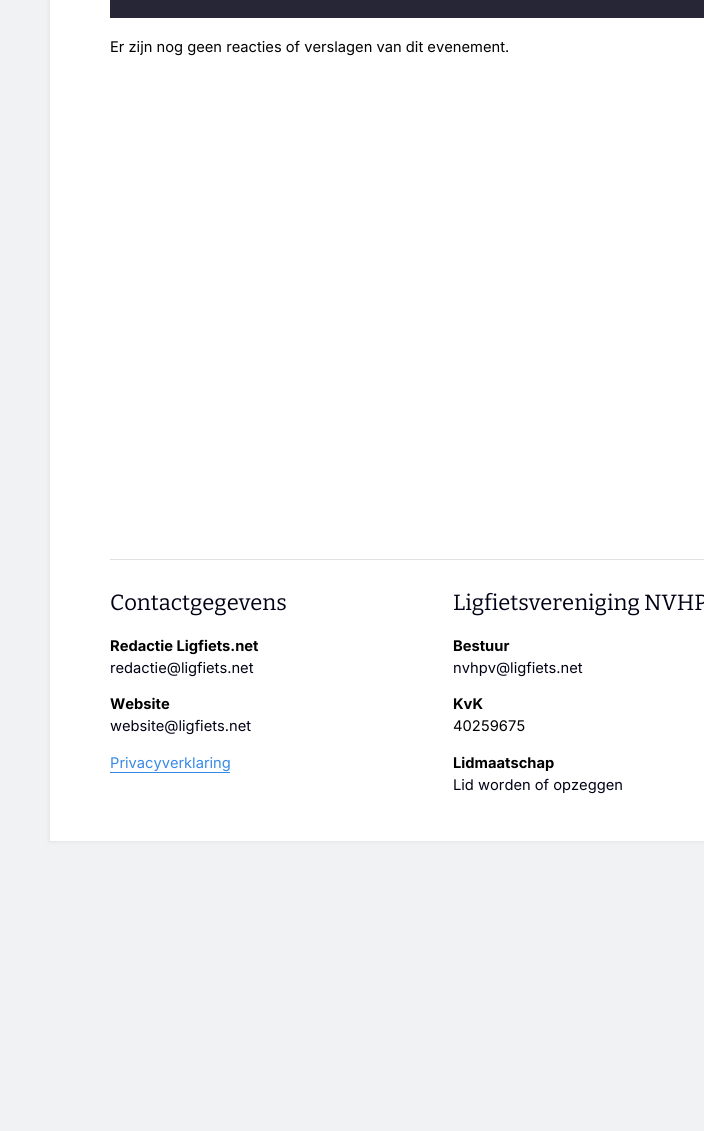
import math
import cairo

surface = cairo.ImageSurface(cairo.FORMAT_RGB24, 704, 1131)
cr = cairo.Context(surface)
options = cairo.FontOptions()
options.set_hint_metrics(cairo.HINT_METRICS_OFF)
options.set_hint_style(cairo.HINT_STYLE_NONE)
cr.set_font_options(options)
cr.set_miter_limit(4)


def rgb(code):
    cr.set_source_rgb(*(v / 255 for v in bytes.fromhex(code[-6:])))


def rrect(x, y, w, h, r):
    cr.new_sub_path()
    for i, (u, v) in enumerate([(x + w - r, y + h - r), (x + r, y + h - r), (x + r, y + r), (x + w - r, y + r)]):
        cr.arc(u, v, r, i * math.pi / 2, (i + 1) * math.pi / 2)
    cr.close_path()


def soft_shadow(x, y, w, h, r, blur, alpha):
    cr.push_group_with_content(cairo.CONTENT_ALPHA)
    cr.set_operator(cairo.OPERATOR_SOURCE)
    for i in range(15, -16, -2):
        e = blur * i / 6
        if min(w, h) + 2 * e > 0:
            cr.set_source_rgba(0, 0, 0, alpha * math.erfc((i - 1) / 8.5) / 2)
            rrect(x - e, y - e, w + 2 * e, h + 2 * e, max(0, min(r + e + blur * .6, min(w, h) / 2 + e)))
            cr.fill()
    cr.mask(cr.pop_group())


rgb("#f1f2f4")
cr.paint()
rgb("#000000")
soft_shadow(50, -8, 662, 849, 0, 2.5, 0.1)
for x, y, w, h, color in [
    (50, 0, 654, 841, "#ffffff"),
    (110, 0, 594, 18, "#262637"),
    (110, 559, 594, 1, "#e1e1e1"),
    (110, 772, 120, 1, "#3689e6"),
]:
    rgb(color)
    cr.rectangle(x, y, w, h)
    cr.fill()
cr.select_font_face("Inter")
cr.set_font_size(14.7)
rgb("#000000")
cr.move_to(110, 52)
cr.show_text("Er zijn nog geen reacties of verslagen van dit evenement.")
cr.select_font_face("Bitter")
cr.set_font_size(22)
rgb("#000014")
cr.move_to(110, 610)
cr.show_text("Contactgegevens")
cr.select_font_face("Inter", cairo.FONT_SLANT_NORMAL, cairo.FONT_WEIGHT_BOLD)
cr.set_font_size(14.7)
rgb("#000000")
cr.move_to(110, 651)
cr.show_text("Redactie Ligfiets.net")
cr.select_font_face("Inter")
rgb("#000014")
cr.move_to(110, 673)
cr.show_text("redactie@ligfiets.net")
cr.select_font_face("Inter", cairo.FONT_SLANT_NORMAL, cairo.FONT_WEIGHT_BOLD)
rgb("#000000")
cr.move_to(110, 709)
cr.show_text("Website")
cr.select_font_face("Inter")
rgb("#000014")
cr.move_to(110, 731)
cr.show_text("website@ligfiets.net")
rgb("#3689e6")
cr.move_to(110, 768)
cr.show_text("Privacyverklaring")
cr.select_font_face("Bitter")
cr.set_font_size(22)
rgb("#000014")
cr.move_to(453, 610)
cr.show_text("Ligfietsvereniging NVHP")
cr.select_font_face("Inter", cairo.FONT_SLANT_NORMAL, cairo.FONT_WEIGHT_BOLD)
cr.set_font_size(14.7)
rgb("#000000")
cr.move_to(453, 651)
cr.show_text("Bestuur")
cr.select_font_face("Inter")
rgb("#000014")
cr.move_to(453, 673)
cr.show_text("nvhpv@ligfiets.net")
cr.select_font_face("Inter", cairo.FONT_SLANT_NORMAL, cairo.FONT_WEIGHT_BOLD)
rgb("#000000")
cr.move_to(453, 709)
cr.show_text("KvK")
cr.select_font_face("Inter")
cr.move_to(453, 731)
cr.show_text("40259675")
cr.select_font_face("Inter", cairo.FONT_SLANT_NORMAL, cairo.FONT_WEIGHT_BOLD)
cr.move_to(453, 768)
cr.show_text("Lidmaatschap")
cr.select_font_face("Inter")
rgb("#000014")
cr.move_to(453, 790)
cr.show_text("Lid worden of opzeggen")
surface.write_to_png("page.png")
